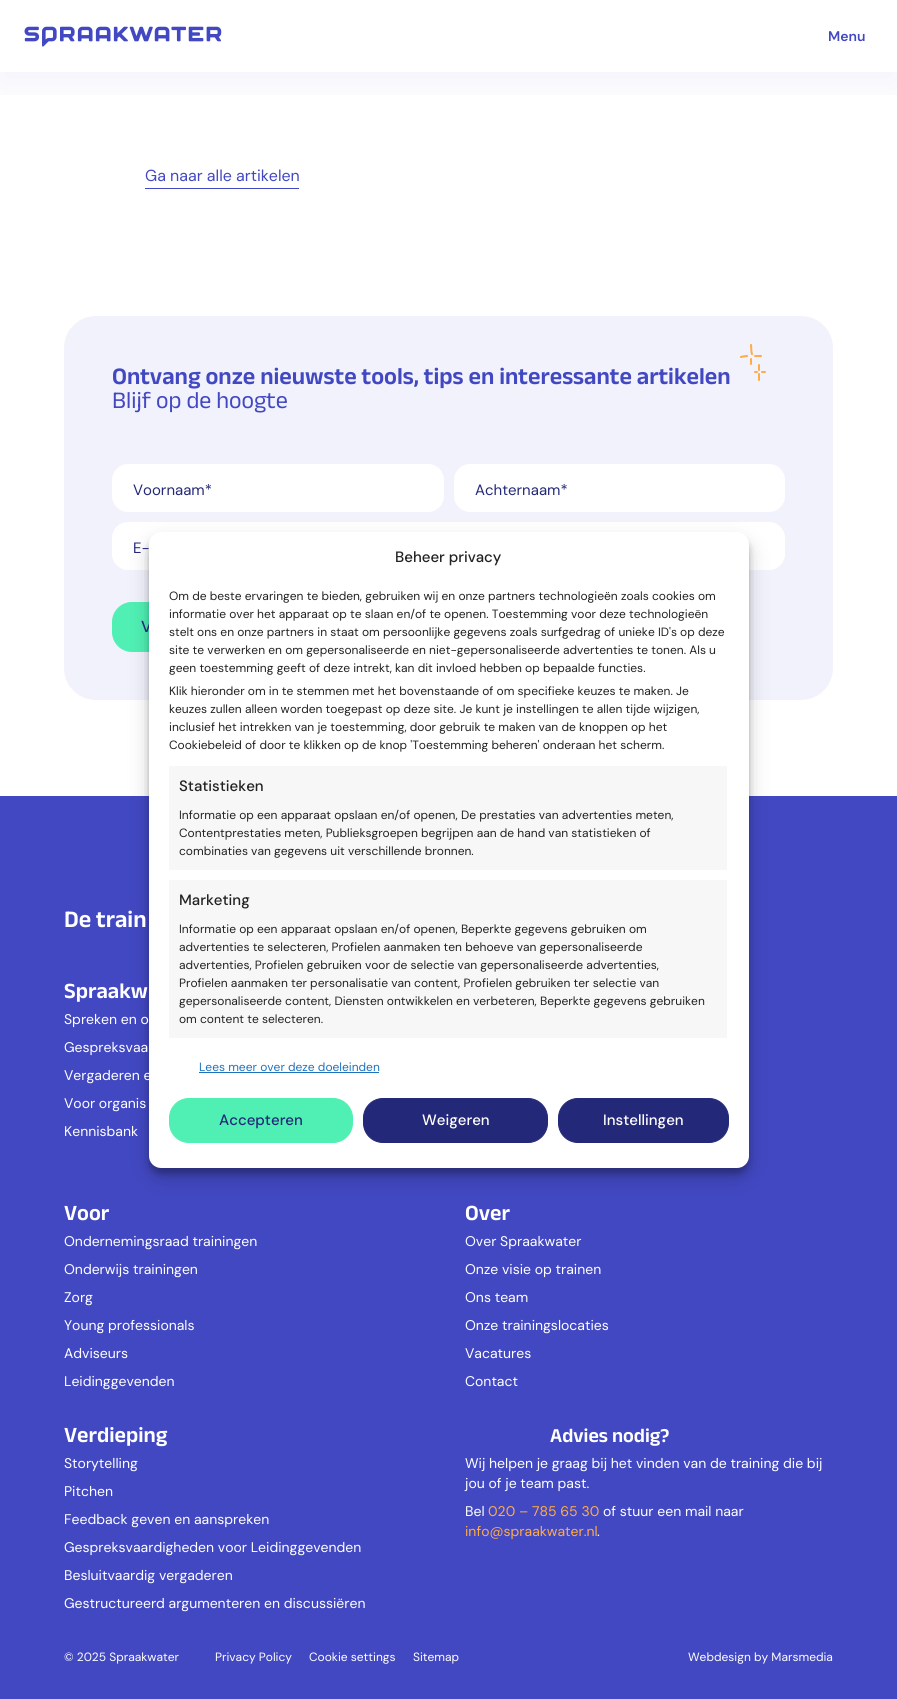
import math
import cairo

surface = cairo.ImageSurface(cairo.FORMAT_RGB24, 897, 1699)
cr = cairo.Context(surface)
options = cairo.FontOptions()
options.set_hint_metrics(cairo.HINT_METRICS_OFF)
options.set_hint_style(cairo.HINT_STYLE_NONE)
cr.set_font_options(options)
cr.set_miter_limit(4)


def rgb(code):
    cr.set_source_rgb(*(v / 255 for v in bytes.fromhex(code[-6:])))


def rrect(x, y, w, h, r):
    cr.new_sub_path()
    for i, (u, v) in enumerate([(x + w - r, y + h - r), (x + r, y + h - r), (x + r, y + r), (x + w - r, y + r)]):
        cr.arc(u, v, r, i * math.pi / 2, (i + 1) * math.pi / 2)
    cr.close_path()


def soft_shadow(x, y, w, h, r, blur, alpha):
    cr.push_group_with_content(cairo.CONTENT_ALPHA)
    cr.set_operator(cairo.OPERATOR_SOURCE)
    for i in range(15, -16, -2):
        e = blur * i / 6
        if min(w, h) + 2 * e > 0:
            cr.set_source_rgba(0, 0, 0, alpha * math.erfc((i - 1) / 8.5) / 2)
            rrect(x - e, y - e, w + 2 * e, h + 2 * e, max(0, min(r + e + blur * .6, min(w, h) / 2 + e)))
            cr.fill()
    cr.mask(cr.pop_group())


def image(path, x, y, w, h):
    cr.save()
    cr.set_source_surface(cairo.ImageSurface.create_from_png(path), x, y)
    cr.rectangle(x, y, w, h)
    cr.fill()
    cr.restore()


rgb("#ffffff")
cr.paint()
cr.save()
cr.rectangle(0, 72, 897, 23)
cr.clip()
rgb("#4248c2")
soft_shadow(0, 10, 897, 72, 0, 20, 0.08)
cr.restore()
image("img/1.png", 24, 26, 198, 21)
rgb("#4248c2")
cr.rectangle(145, 188, 154, 1)
cr.fill()
rgb("#f2f2fd")
rrect(64, 316, 769, 384, 32)
cr.fill()
image("img/2.png", 740, 344, 26, 37)
rgb("#ffffff")
rrect(112.5, 464.5, 331, 47, 15.5)
cr.fill_preserve()
cr.set_line_width(1)
cr.stroke()
rrect(454.5, 464.5, 330, 47, 15.5)
cr.fill_preserve()
cr.stroke()
rrect(112.5, 522.5, 672, 47, 15.5)
cr.fill_preserve()
cr.stroke()
rgb("#50f0b4")
rrect(112.5, 602.5, 123, 49, 19.5)
cr.fill_preserve()
cr.stroke()
rgb("#4248c2")
cr.rectangle(0, 796, 897, 903)
cr.fill()
rgb("#000000")
soft_shadow(149, 538, 600, 636, 12, 3, 0.23)
soft_shadow(149, 542, 600, 636, 12, 10, 0.19)
cr.select_font_face("DM Sans SemiBold")
cr.set_font_size(14)
rgb("#4248c2")
cr.move_to(828, 41)
cr.show_text("Menu")
cr.select_font_face("DM Sans")
cr.set_font_size(16)
cr.move_to(145, 181)
cr.show_text("Ga naar alle artikelen")
cr.select_font_face("Anek Latin SemiBold")
cr.set_font_size(24)
cr.move_to(112, 384)
cr.show_text("Ontvang onze nieuwste tools, tips en interessante artikelen")
cr.select_font_face("Anek Latin")
cr.move_to(112, 408)
cr.show_text("Blijf op de hoogte")
cr.select_font_face("DM Sans")
cr.set_font_size(15)
rgb("#242878")
for x, y, s in [
    (133, 495, "Voornaam*"),
    (475, 495, "Achternaam*"),
    (133, 553, "E-"),
]:
    cr.move_to(x, y)
    cr.show_text(s)
cr.select_font_face("DM Sans Medium")
cr.set_font_size(16)
cr.move_to(141, 632)
cr.show_text("V")
rgb("#ffffff")
rrect(149, 532, 600, 636, 12)
cr.fill()
cr.set_font_size(15)
rgb("#222222")
cr.move_to(395, 562)
cr.show_text("Beheer privacy")
cr.select_font_face("DM Sans")
cr.set_font_size(12)
for x, y, s in [
    (169, 600, "Om de beste ervaringen te bieden, gebruiken wij en onze partners technologieën zoals cookies om"),
    (169, 618, "informatie over het apparaat op te slaan en/of te openen. Toestemming voor deze technologieën"),
    (169, 636, "stelt ons en onze partners in staat om persoonlijke gegevens zoals surfgedrag of unieke ID's op deze"),
    (169, 654, "site te verwerken en om gepersonaliseerde en niet-gepersonaliseerde advertenties te tonen. Als u"),
    (169, 672, "geen toestemming geeft of deze intrekt, kan dit invloed hebben op bepaalde functies."),
    (169, 695, "Klik hieronder om in te stemmen met het bovenstaande of om specifieke keuzes te maken. Je"),
    (169, 713, "keuzes zullen alleen worden toegepast op deze site. Je kunt je instellingen te allen tijde wijzigen,"),
    (169, 731, "inclusief het intrekken van je toestemming, door gebruik te maken van de knoppen op het"),
    (169, 749, "Cookiebeleid of door te klikken op de knop 'Toestemming beheren' onderaan het scherm."),
]:
    cr.move_to(x, y)
    cr.show_text(s)
rgb("#f7f7f7")
cr.rectangle(169, 766, 558, 104)
cr.fill()
cr.select_font_face("DM Sans Medium")
cr.set_font_size(15)
rgb("#222222")
cr.move_to(179, 791)
cr.show_text("Statistieken")
cr.select_font_face("DM Sans")
cr.set_font_size(12)
for x, y, s in [
    (179, 819, "Informatie op een apparaat opslaan en/of openen, De prestaties van advertenties meten,"),
    (179, 837, "Contentprestaties meten, Publieksgroepen begrijpen aan de hand van statistieken of"),
    (179, 855, "combinaties van gegevens uit verschillende bronnen."),
]:
    cr.move_to(x, y)
    cr.show_text(s)
rgb("#f7f7f7")
cr.rectangle(169, 880, 558, 158)
cr.fill()
cr.select_font_face("DM Sans Medium")
cr.set_font_size(15)
rgb("#222222")
cr.move_to(179, 905)
cr.show_text("Marketing")
cr.select_font_face("DM Sans")
cr.set_font_size(12)
for x, y, s in [
    (179, 933, "Informatie op een apparaat opslaan en/of openen, Beperkte gegevens gebruiken om"),
    (179, 951, "advertenties te selecteren, Profielen aanmaken ten behoeve van gepersonaliseerde"),
    (179, 969, "advertenties, Profielen gebruiken voor de selectie van gepersonaliseerde advertenties,"),
    (179, 987, "Profielen aanmaken ter personalisatie van content, Profielen gebruiken ter selectie van"),
    (179, 1005, "gepersonaliseerde content, Diensten ontwikkelen en verbeteren, Beperkte gegevens gebruiken"),
    (179, 1023, "om content te selecteren."),
]:
    cr.move_to(x, y)
    cr.show_text(s)
rgb("#1e73be")
cr.move_to(199, 1071)
cr.show_text("Lees meer over deze doeleinden")
cr.rectangle(199, 1072, 180, 1)
cr.fill()
rgb("#50f0b4")
rrect(169.5, 1098.5, 183, 44, 19.5)
cr.fill_preserve()
cr.stroke()
cr.select_font_face("DM Sans Medium")
cr.set_font_size(15)
rgb("#242878")
cr.move_to(219, 1125)
cr.show_text("Accepteren")
rrect(363.5, 1098.5, 184, 44, 19.5)
cr.fill_preserve()
cr.stroke()
rgb("#ffffff")
cr.move_to(422, 1125)
cr.show_text("Weigeren")
rgb("#242878")
rrect(558.5, 1098.5, 170, 44, 19.5)
cr.fill_preserve()
cr.stroke()
rgb("#ffffff")
cr.move_to(603, 1125)
cr.show_text("Instellingen")
cr.select_font_face("Anek Latin SemiBold")
cr.set_font_size(24)
cr.move_to(64, 927)
cr.show_text("De train")
cr.set_font_size(22)
cr.move_to(64, 998)
cr.show_text("Spraakw")
cr.select_font_face("DM Sans")
cr.set_font_size(14)
for x, y, s in [
    (64, 1024, "Spreken en o"),
    (64, 1052, "Gespreksvaa"),
    (64, 1080, "Vergaderen e"),
    (64, 1108, "Voor organis"),
    (64, 1136, "Kennisbank"),
]:
    cr.move_to(x, y)
    cr.show_text(s)
cr.select_font_face("Anek Latin SemiBold")
cr.set_font_size(22)
cr.move_to(64, 1220)
cr.show_text("Voor")
cr.select_font_face("DM Sans")
cr.set_font_size(14)
for x, y, s in [
    (64, 1246, "Ondernemingsraad trainingen"),
    (64, 1274, "Onderwijs trainingen"),
    (64, 1302, "Zorg"),
    (64, 1330, "Young professionals"),
    (64, 1358, "Adviseurs"),
    (64, 1386, "Leidinggevenden"),
]:
    cr.move_to(x, y)
    cr.show_text(s)
cr.select_font_face("Anek Latin SemiBold")
cr.set_font_size(22)
cr.move_to(465, 1220)
cr.show_text("Over")
cr.select_font_face("DM Sans")
cr.set_font_size(14)
for x, y, s in [
    (465, 1246, "Over Spraakwater"),
    (465, 1274, "Onze visie op trainen"),
    (465, 1302, "Ons team"),
    (465, 1330, "Onze trainingslocaties"),
    (465, 1358, "Vacatures"),
    (465, 1386, "Contact"),
]:
    cr.move_to(x, y)
    cr.show_text(s)
cr.select_font_face("Anek Latin SemiBold")
cr.set_font_size(22)
cr.move_to(64, 1442)
cr.show_text("Verdieping")
cr.select_font_face("DM Sans")
cr.set_font_size(14)
for x, y, s in [
    (64, 1468, "Storytelling"),
    (64, 1496, "Pitchen"),
    (64, 1524, "Feedback geven en aanspreken"),
    (64, 1552, "Gespreksvaardigheden voor Leidinggevenden"),
    (64, 1580, "Besluitvaardig vergaderen"),
    (64, 1608, "Gestructureerd argumenteren en discussiëren"),
]:
    cr.move_to(x, y)
    cr.show_text(s)
cr.select_font_face("Anek Latin SemiBold")
cr.set_font_size(20)
cr.move_to(550, 1442)
cr.show_text("Advies nodig?")
cr.select_font_face("DM Sans")
cr.set_font_size(14)
for x, y, s in [
    (465, 1468, "Wij helpen je graag bij het vinden van de training die bij"),
    (465, 1488, "jou of je team past."),
    (465, 1516, "Bel"),
]:
    cr.move_to(x, y)
    cr.show_text(s)
rgb("#ffab46")
cr.move_to(488, 1516)
cr.show_text("020 – 785 65 30")
rgb("#ffffff")
cr.move_to(603, 1516)
cr.show_text("of stuur een mail naar")
rgb("#ffab46")
cr.move_to(465, 1536)
cr.show_text("info@spraakwater.nl")
rgb("#ffffff")
cr.move_to(597, 1536)
cr.show_text(".")
cr.set_font_size(12)
for x, y, s in [
    (64, 1661, "© 2025 Spraakwater"),
    (215, 1661, "Privacy Policy"),
    (309, 1661, "Cookie settings"),
    (413, 1661, "Sitemap"),
    (688, 1661, "Webdesign by Marsmedia"),
]:
    cr.move_to(x, y)
    cr.show_text(s)
surface.write_to_png("page.png")
